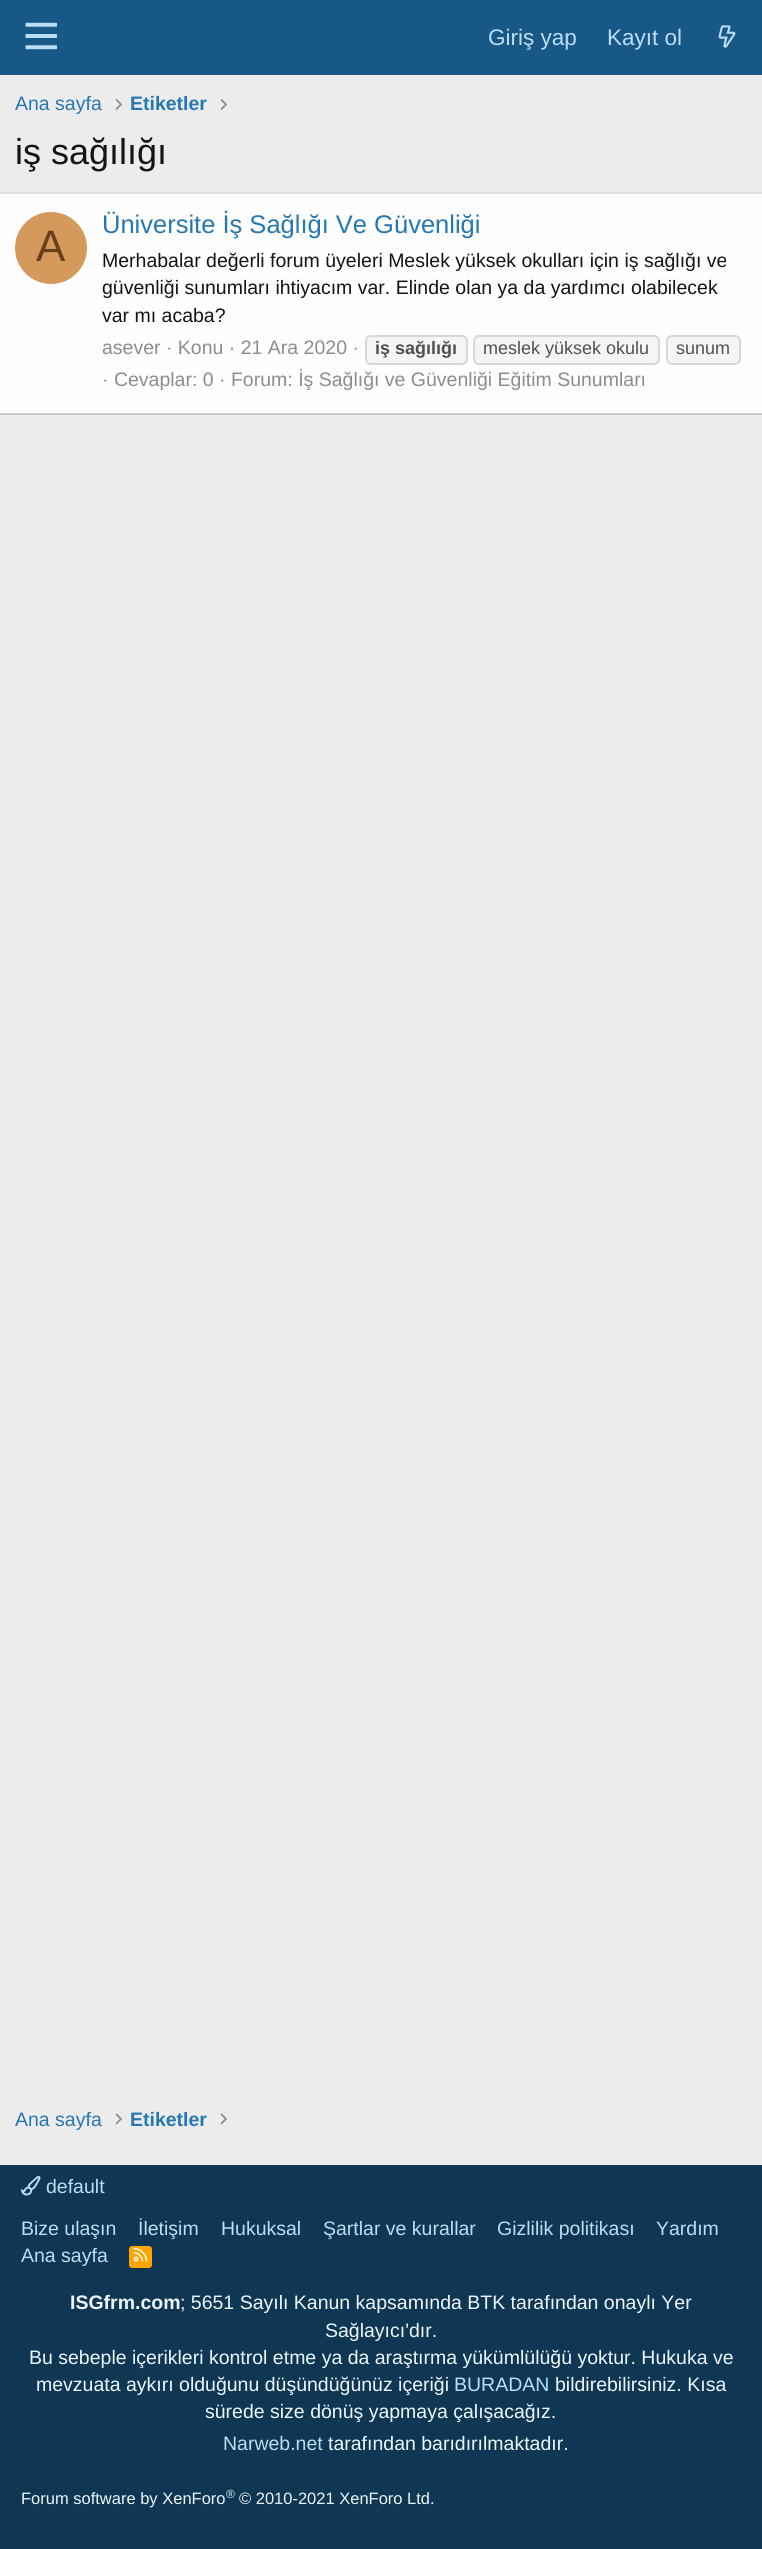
import math
import cairo

surface = cairo.ImageSurface(cairo.FORMAT_RGB24, 762, 2549)
cr = cairo.Context(surface)
options = cairo.FontOptions()
options.set_hint_metrics(cairo.HINT_METRICS_OFF)
options.set_hint_style(cairo.HINT_STYLE_NONE)
cr.set_font_options(options)
cr.set_miter_limit(4)


def rgb(code):
    cr.set_source_rgb(*(v / 255 for v in bytes.fromhex(code[-6:])))


def rrect(x, y, w, h, r):
    cr.new_sub_path()
    for i, (u, v) in enumerate([(x + w - r, y + h - r), (x + r, y + h - r), (x + r, y + r), (x + w - r, y + r)]):
        cr.arc(u, v, r, i * math.pi / 2, (i + 1) * math.pi / 2)
    cr.close_path()


def image(path, x, y, w, h):
    cr.save()
    cr.set_source_surface(cairo.ImageSurface.create_from_png(path), x, y)
    cr.rectangle(x, y, w, h)
    cr.fill()
    cr.restore()


rgb("#ececec")
cr.paint()
rgb("#185886")
cr.rectangle(0, 0, 762, 75)
cr.fill()
image("img/1.png", 25, 22, 32, 28)
image("img/2.png", 718, 25, 18, 23)
image("img/3.png", 115, 99, 7, 11)
image("img/3.png", 220, 99, 7, 11)
for x, y, w, h, color in [
    (0, 194, 762, 219, "#fefefe"),
    (0, 192, 762, 2, "#dfdfdf"),
    (0, 413, 762, 2, "#cbcbcb"),
]:
    rgb(color)
    cr.rectangle(x, y, w, h)
    cr.fill()
rgb("#d6995c")
cr.arc(51, 248, 36, 0, 2 * math.pi)
cr.fill()
rgb("#f5f5f5")
rrect(366, 336, 101, 28, 5)
cr.fill_preserve()
rgb("#d8d8d8")
cr.stroke()
rgb("#f5f5f5")
rrect(474, 336, 185, 28, 5)
cr.fill_preserve()
rgb("#d8d8d8")
cr.stroke()
rgb("#f5f5f5")
rrect(667, 336, 73, 28, 5)
cr.fill_preserve()
rgb("#d8d8d8")
cr.stroke()
image("img/4.png", 115, 2113, 7, 12)
image("img/4.png", 220, 2113, 7, 12)
rgb("#0f3652")
cr.rectangle(0, 2165, 762, 384)
cr.fill()
image("img/5.png", 21, 2176, 20, 20)
rgb("#ffa500")
rrect(129, 2246, 23, 22, 3)
cr.fill()
image("img/6.png", 133, 2247, 15, 15)
cr.select_font_face("Liberation Sans")
cr.set_font_size(22.5)
rgb("#bcdef5")
cr.move_to(488, 45)
cr.show_text("Giriş yap")
cr.move_to(607, 45)
cr.show_text("Kayıt ol")
cr.set_font_size(19.5)
rgb("#2577b1")
cr.move_to(15, 110)
cr.show_text("Ana sayfa")
cr.select_font_face("Liberation Sans", cairo.FONT_SLANT_NORMAL, cairo.FONT_WEIGHT_BOLD)
cr.move_to(130, 110)
cr.show_text("Etiketler")
cr.select_font_face("Liberation Sans")
cr.set_font_size(36)
rgb("#141414")
cr.move_to(15, 164)
cr.show_text("iş sağılığı")
cr.set_font_size(44)
rgb("#66401a")
cr.move_to(36, 261)
cr.show_text("A")
cr.set_font_size(25.5)
rgb("#2577b1")
cr.move_to(102, 233)
cr.show_text("Üniversite İş Sağlığı Ve Güvenliği")
cr.set_font_size(19.5)
rgb("#141414")
for x, y, s in [
    (102, 267, "Merhabalar değerli forum üyeleri Meslek yüksek okulları için iş sağlığı ve"),
    (102, 294, "güvenliği sunumları ihtiyacım var. Elinde olan ya da yardımcı olabilecek"),
    (102, 322, "var mı acaba?"),
]:
    cr.move_to(x, y)
    cr.show_text(s)
rgb("#8c8c8c")
cr.move_to(102, 354)
cr.show_text("asever · Konu · 21 Ara 2020 ·")
cr.select_font_face("Liberation Sans", cairo.FONT_SLANT_NORMAL, cairo.FONT_WEIGHT_BOLD)
cr.set_font_size(18)
rgb("#505050")
cr.move_to(375, 354)
cr.show_text("iş sağılığı")
cr.select_font_face("Liberation Sans")
cr.move_to(483, 354)
cr.show_text("meslek yüksek okulu")
cr.move_to(676, 354)
cr.show_text("sunum")
cr.set_font_size(19.5)
rgb("#8c8c8c")
cr.move_to(102, 386)
cr.show_text("· Cevaplar: 0 · Forum: İş Sağlığı ve Güvenliği Eğitim Sunumları")
rgb("#2577b1")
cr.move_to(15, 2126)
cr.show_text("Ana sayfa")
cr.select_font_face("Liberation Sans", cairo.FONT_SLANT_NORMAL, cairo.FONT_WEIGHT_BOLD)
cr.move_to(130, 2126)
cr.show_text("Etiketler")
cr.select_font_face("Liberation Sans")
rgb("#bcdef5")
for x, y, s in [
    (46, 2193, "default"),
    (21, 2235, "Bize ulaşın"),
    (138, 2235, "İletişim"),
    (221, 2235, "Hukuksal"),
    (323, 2235, "Şartlar ve kurallar"),
    (497, 2235, "Gizlilik politikası"),
    (656, 2235, "Yardım"),
    (21, 2262, "Ana sayfa"),
]:
    cr.move_to(x, y)
    cr.show_text(s)
cr.select_font_face("Liberation Sans", cairo.FONT_SLANT_NORMAL, cairo.FONT_WEIGHT_BOLD)
rgb("#edf6fd")
cr.move_to(70, 2309)
cr.show_text("ISGfrm.com")
cr.select_font_face("Liberation Sans")
for x, y, s in [
    (180, 2309, "; 5651 Sayılı Kanun kapsamında BTK tarafından onaylı Yer"),
    (325, 2337, "Sağlayıcı'dır."),
    (29, 2364, "Bu sebeple içerikleri kontrol etme ya da araştırma yükümlülüğü yoktur. Hukuka ve"),
    (36, 2391, "mevzuata aykırı olduğunu düşündüğünüz içeriği"),
]:
    cr.move_to(x, y)
    cr.show_text(s)
rgb("#bcdef5")
cr.move_to(454, 2391)
cr.show_text("BURADAN")
rgb("#edf6fd")
cr.move_to(555, 2391)
cr.show_text("bildirebilirsiniz. Kısa")
cr.move_to(205, 2418)
cr.show_text("sürede size dönüş yapmaya çalışacağız.")
rgb("#bcdef5")
cr.move_to(223, 2450)
cr.show_text("Narweb.net")
rgb("#edf6fd")
cr.move_to(328, 2450)
cr.show_text("tarafından barıdırılmaktadır.")
cr.set_font_size(16.5)
cr.move_to(21, 2504)
cr.show_text("Forum software by XenForo")
cr.set_font_size(12)
cr.move_to(226, 2498)
cr.show_text("®")
cr.set_font_size(16.5)
cr.move_to(239, 2504)
cr.show_text("© 2010-2021 XenForo Ltd.")
surface.write_to_png("page.png")
